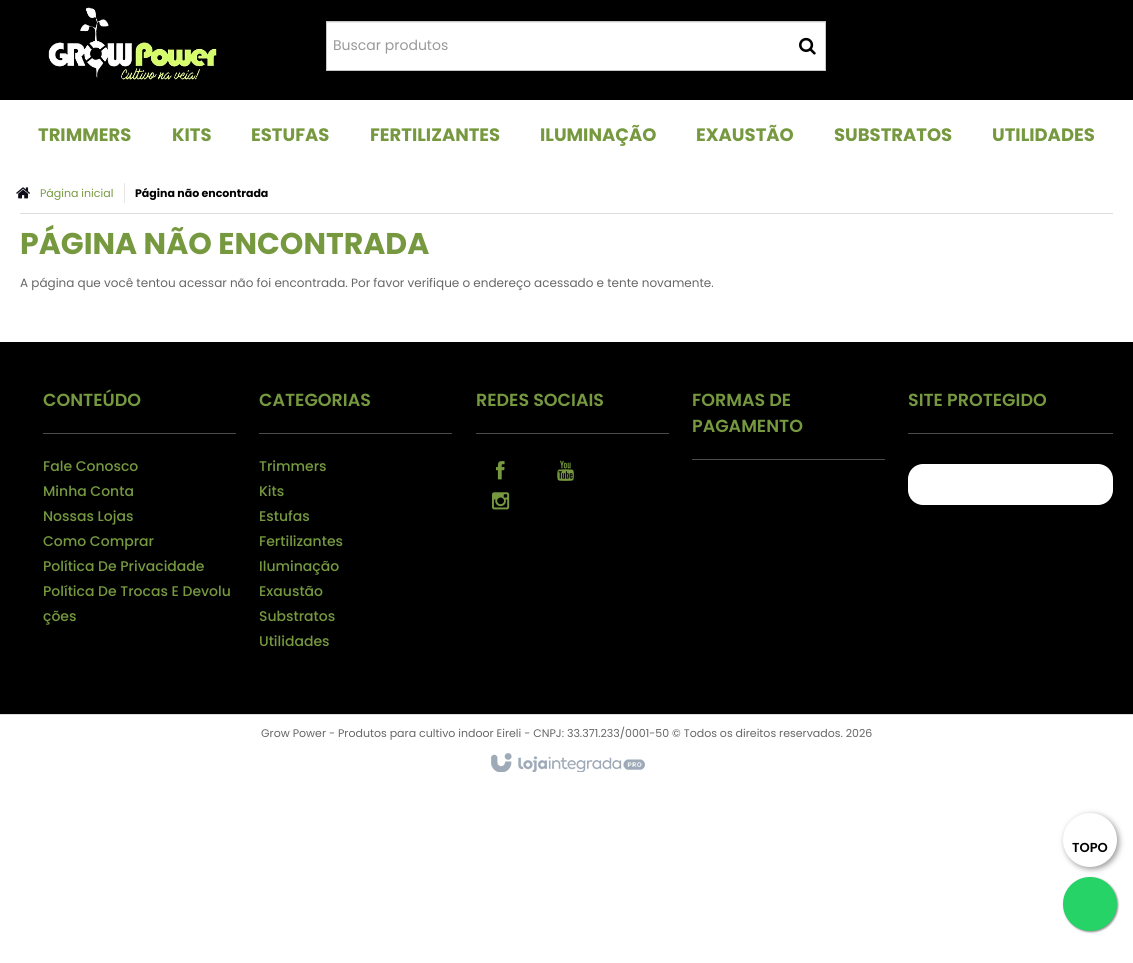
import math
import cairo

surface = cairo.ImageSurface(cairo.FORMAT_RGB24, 1133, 963)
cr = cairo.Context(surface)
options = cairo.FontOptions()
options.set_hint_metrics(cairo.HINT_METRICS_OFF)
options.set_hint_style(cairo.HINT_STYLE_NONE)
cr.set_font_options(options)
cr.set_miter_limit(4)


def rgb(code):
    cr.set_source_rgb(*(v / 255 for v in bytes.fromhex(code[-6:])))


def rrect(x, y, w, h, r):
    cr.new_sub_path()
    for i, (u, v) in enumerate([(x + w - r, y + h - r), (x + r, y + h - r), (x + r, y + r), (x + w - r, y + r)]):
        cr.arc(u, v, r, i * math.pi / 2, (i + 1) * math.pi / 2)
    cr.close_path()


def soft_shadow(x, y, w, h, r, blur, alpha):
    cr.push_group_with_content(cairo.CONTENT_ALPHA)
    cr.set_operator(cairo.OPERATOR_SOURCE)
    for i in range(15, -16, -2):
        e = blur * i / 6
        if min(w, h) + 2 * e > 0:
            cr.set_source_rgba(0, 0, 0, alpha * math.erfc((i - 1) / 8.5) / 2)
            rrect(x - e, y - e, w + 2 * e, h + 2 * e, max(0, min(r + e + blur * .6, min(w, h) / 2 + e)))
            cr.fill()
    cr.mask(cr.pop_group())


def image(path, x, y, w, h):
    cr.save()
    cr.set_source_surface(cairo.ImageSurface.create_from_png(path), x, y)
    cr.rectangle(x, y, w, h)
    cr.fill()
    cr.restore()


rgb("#ffffff")
cr.paint()
rgb("#000000")
cr.rectangle(0, 0, 1133, 100)
cr.fill()
image("img/1.png", 48, 7, 169, 74)
rgb("#ffffff")
cr.rectangle(327, 23, 498, 47)
cr.fill()
rgb("#ececec")
cr.rectangle(327, 22, 498, 1)
cr.fill()
cr.rectangle(326.5, 21.5, 499, 49)
rgb("#c7c7c7")
cr.set_line_width(1)
cr.stroke()
image("img/2.png", 799, 37, 17, 18)
rgb("#dedede")
cr.rectangle(20, 213, 1093, 1)
cr.fill()
image("img/3.png", 16, 187, 14, 12)
for x, y, w, h, color in [
    (124, 183, 1, 20, "#e6e6e6"),
    (0, 342, 1133, 372, "#000000"),
    (43, 433, 193, 1, "#4c4b4b"),
    (259, 433, 193, 1, "#4c4b4b"),
    (476, 433, 193, 1, "#4c4b4b"),
]:
    rgb(color)
    cr.rectangle(x, y, w, h)
    cr.fill()
image("img/4.png", 496, 461, 9, 19)
image("img/5.png", 557, 460, 17, 21)
image("img/6.png", 492, 492, 18, 18)
cr.rectangle(692, 459, 193, 1)
cr.fill()
cr.rectangle(908, 433, 205, 1)
cr.fill()
rgb("#ffffff")
rrect(908, 464, 205, 41, 15)
cr.fill()
rgb("#dddddd")
cr.rectangle(0, 714, 1133, 1)
cr.fill()
image("img/7.png", 491, 753, 154, 19)
rgb("#888888")
soft_shadow(1064, 878, 54, 54, 27, 1, 1)
rgb("#000000")
soft_shadow(1065, 815, 54, 54, 27, 3, 0.4)
rgb("#25d366")
cr.arc(1090, 904, 27, 0, 2 * math.pi)
cr.fill()
rgb("#ffffff")
cr.arc(1090, 840, 27, 0, 2 * math.pi)
cr.fill()
cr.select_font_face("Poppins")
cr.set_font_size(14)
rgb("#999999")
cr.move_to(333, 50)
cr.show_text("Buscar produtos")
cr.select_font_face("Poppins", cairo.FONT_SLANT_NORMAL, cairo.FONT_WEIGHT_BOLD)
cr.set_font_size(18)
rgb("#769940")
for x, y, s in [
    (38, 141, "TRIMMERS"),
    (172, 141, "KITS"),
    (251, 141, "ESTUFAS"),
    (370, 141, "FERTILIZANTES"),
    (540, 141, "ILUMINAÇÃO"),
    (696, 141, "EXAUSTÃO"),
    (834, 141, "SUBSTRATOS"),
    (992, 141, "UTILIDADES"),
]:
    cr.move_to(x, y)
    cr.show_text(s)
cr.select_font_face("Poppins")
cr.set_font_size(11)
cr.move_to(40, 197)
cr.show_text("Página inicial")
cr.select_font_face("Poppins", cairo.FONT_SLANT_NORMAL, cairo.FONT_WEIGHT_BOLD)
rgb("#000000")
cr.move_to(135, 197)
cr.show_text("Página não encontrada")
cr.set_font_size(30)
rgb("#769940")
cr.move_to(20, 254)
cr.show_text("PÁGINA NÃO ENCONTRADA")
cr.select_font_face("Poppins")
cr.set_font_size(12)
rgb("#666666")
cr.move_to(20, 287)
cr.show_text("A página que você tentou acessar não foi encontrada. Por favor verifique o endereço acessado e tente novamente.")
cr.select_font_face("Poppins SemiBold")
cr.set_font_size(17.5)
rgb("#769940")
cr.move_to(43, 406)
cr.show_text("CONTEÚDO")
cr.select_font_face("Poppins Medium")
cr.set_font_size(14)
for x, y, s in [
    (43, 471, "Fale Conosco"),
    (43, 496, "Minha Conta"),
    (43, 521, "Nossas Lojas"),
    (43, 546, "Como Comprar"),
    (43, 571, "Política De Privacidade"),
    (43, 596, "Política De Trocas E Devolu"),
    (43, 621, "ções"),
]:
    cr.move_to(x, y)
    cr.show_text(s)
cr.select_font_face("Poppins SemiBold")
cr.set_font_size(17.5)
cr.move_to(259, 406)
cr.show_text("CATEGORIAS")
cr.select_font_face("Poppins Medium")
cr.set_font_size(14)
for x, y, s in [
    (259, 471, "Trimmers"),
    (259, 496, "Kits"),
    (259, 521, "Estufas"),
    (259, 546, "Fertilizantes"),
    (259, 571, "Iluminação"),
    (259, 596, "Exaustão"),
    (259, 621, "Substratos"),
    (259, 646, "Utilidades"),
]:
    cr.move_to(x, y)
    cr.show_text(s)
cr.select_font_face("Poppins SemiBold")
cr.set_font_size(17.5)
for x, y, s in [
    (476, 406, "REDES SOCIAIS"),
    (692, 406, "FORMAS DE"),
    (692, 432, "PAGAMENTO"),
    (908, 406, "SITE PROTEGIDO"),
]:
    cr.move_to(x, y)
    cr.show_text(s)
cr.select_font_face("Poppins")
cr.set_font_size(11)
rgb("#666666")
cr.move_to(261, 737)
cr.show_text("Grow Power - Produtos para cultivo indoor Eireli - CNPJ: 33.371.233/0001-50 © Todos os direitos reservados. 2026")
cr.select_font_face("Poppins SemiBold")
cr.set_font_size(13)
rgb("#000000")
cr.move_to(1072, 852)
cr.show_text("TOPO")
surface.write_to_png("page.png")
